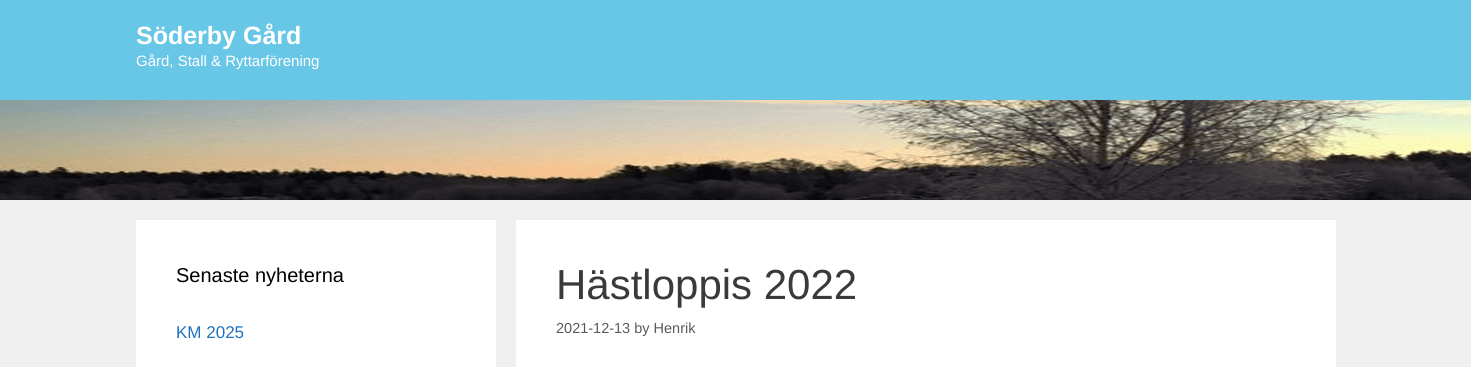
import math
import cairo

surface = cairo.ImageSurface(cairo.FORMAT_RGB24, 1471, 367)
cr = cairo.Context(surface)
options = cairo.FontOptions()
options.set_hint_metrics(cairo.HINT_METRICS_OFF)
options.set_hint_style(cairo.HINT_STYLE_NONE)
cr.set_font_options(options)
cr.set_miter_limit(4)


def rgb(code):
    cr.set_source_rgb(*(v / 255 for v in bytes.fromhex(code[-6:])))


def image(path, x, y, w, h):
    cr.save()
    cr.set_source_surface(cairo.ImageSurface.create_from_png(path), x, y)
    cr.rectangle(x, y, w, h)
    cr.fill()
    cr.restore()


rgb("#efefef")
cr.paint()
rgb("#68c6e7")
cr.rectangle(0, 0, 1471, 100)
cr.fill()
image("img/1.png", 0, 100, 1471, 100)
rgb("#ffffff")
cr.rectangle(136, 220, 360, 147)
cr.fill()
cr.rectangle(516, 220, 820, 147)
cr.fill()
cr.select_font_face("Liberation Sans", cairo.FONT_SLANT_NORMAL, cairo.FONT_WEIGHT_BOLD)
cr.set_font_size(25)
cr.move_to(136, 44)
cr.show_text("Söderby Gård")
cr.select_font_face("Liberation Sans")
cr.set_font_size(15)
cr.move_to(136, 66)
cr.show_text("Gård, Stall & Ryttarförening")
cr.set_font_size(20)
rgb("#000000")
cr.move_to(176, 282)
cr.show_text("Senaste nyheterna")
cr.set_font_size(17)
rgb("#1e73be")
cr.move_to(176, 338)
cr.show_text("KM 2025")
cr.set_font_size(42)
rgb("#3a3a3a")
cr.move_to(556, 299)
cr.show_text("Hästloppis 2022")
cr.set_font_size(14.5)
rgb("#595959")
cr.move_to(556, 333)
cr.show_text("2021-12-13 by Henrik")
surface.write_to_png("page.png")
